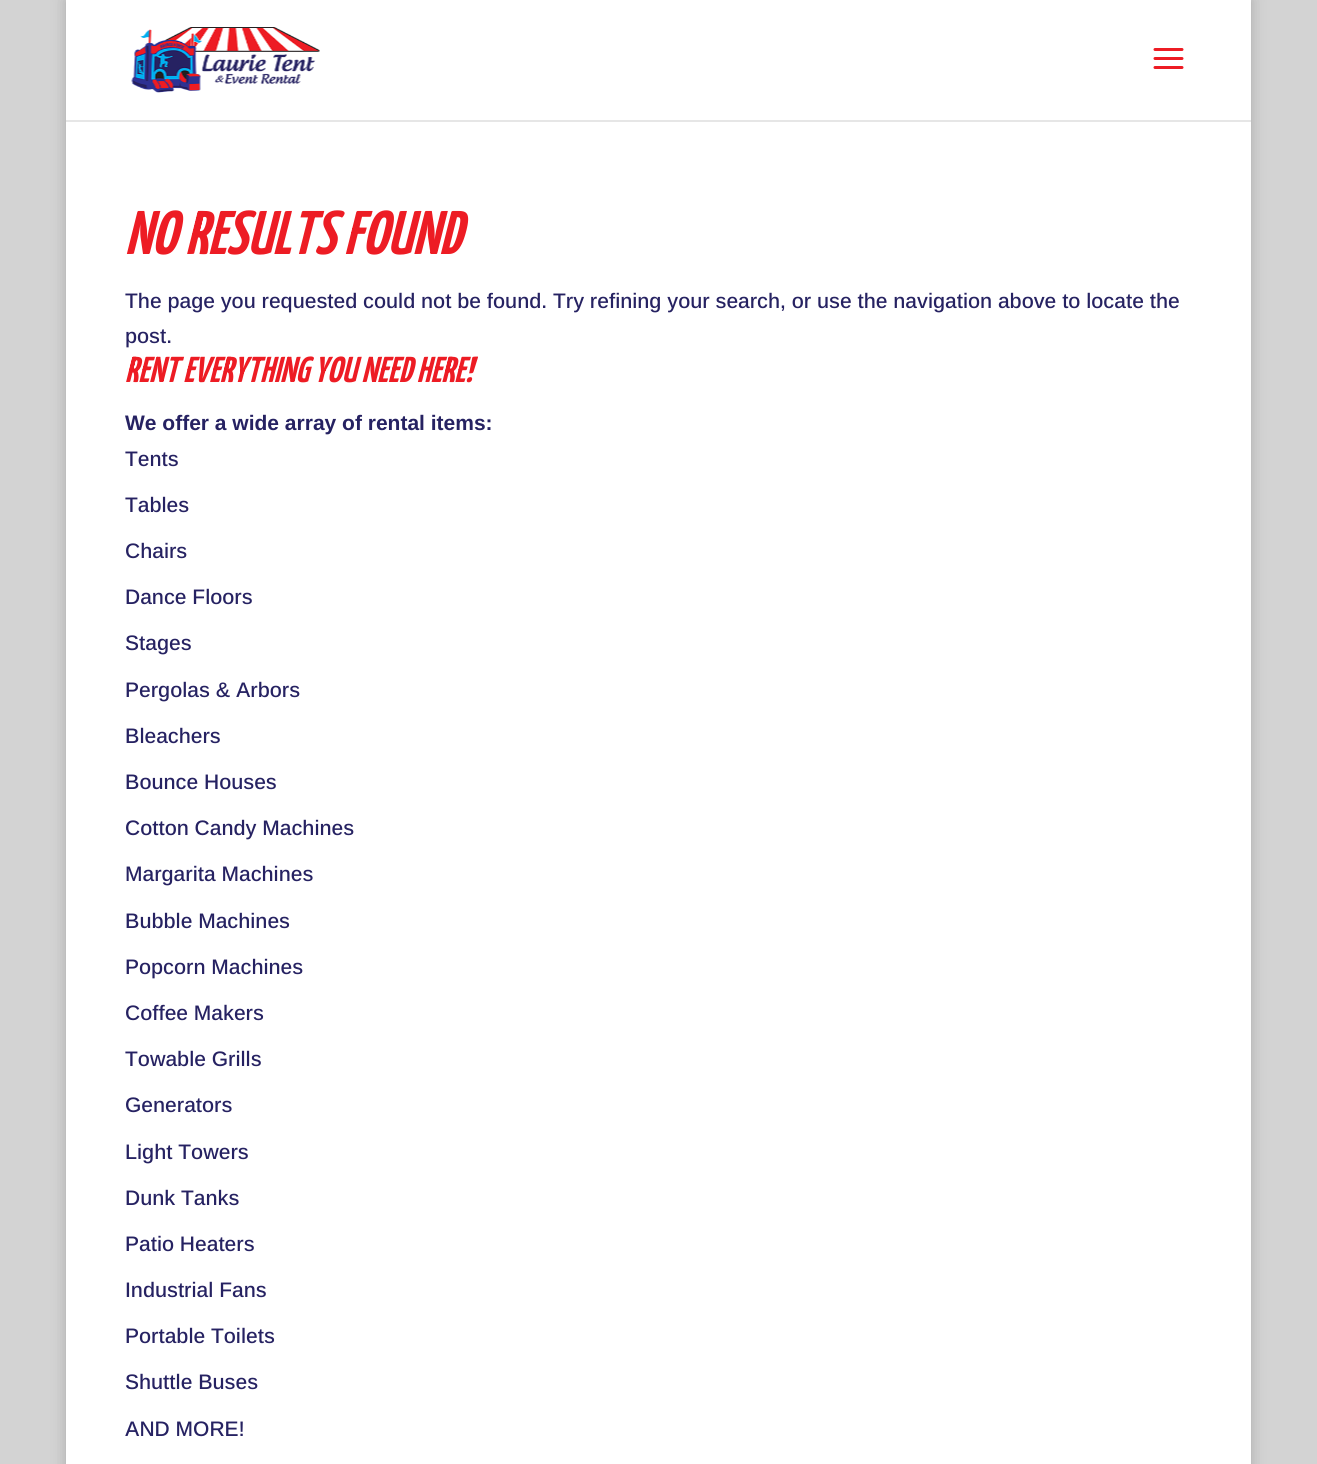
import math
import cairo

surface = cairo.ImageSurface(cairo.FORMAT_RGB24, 1317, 1464)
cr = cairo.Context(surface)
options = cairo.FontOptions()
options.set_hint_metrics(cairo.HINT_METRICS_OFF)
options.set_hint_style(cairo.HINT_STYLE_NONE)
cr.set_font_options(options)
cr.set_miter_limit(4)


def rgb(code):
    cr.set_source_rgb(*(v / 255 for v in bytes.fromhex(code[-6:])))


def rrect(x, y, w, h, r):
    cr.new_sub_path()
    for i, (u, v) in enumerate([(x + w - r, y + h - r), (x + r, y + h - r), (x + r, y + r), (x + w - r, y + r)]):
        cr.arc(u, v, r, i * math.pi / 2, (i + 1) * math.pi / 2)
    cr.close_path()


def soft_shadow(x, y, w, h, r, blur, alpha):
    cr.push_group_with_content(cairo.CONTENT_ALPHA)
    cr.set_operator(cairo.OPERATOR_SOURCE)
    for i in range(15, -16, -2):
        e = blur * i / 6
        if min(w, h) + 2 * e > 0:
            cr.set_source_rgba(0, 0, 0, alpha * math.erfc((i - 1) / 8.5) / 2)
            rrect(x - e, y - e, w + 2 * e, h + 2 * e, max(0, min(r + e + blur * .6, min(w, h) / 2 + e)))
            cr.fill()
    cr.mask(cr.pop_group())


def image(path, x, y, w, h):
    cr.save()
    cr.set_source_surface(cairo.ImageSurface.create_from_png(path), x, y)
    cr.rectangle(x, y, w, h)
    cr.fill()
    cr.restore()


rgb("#d3d3d3")
cr.paint()
rgb("#000000")
soft_shadow(66, 0, 1185, 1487, 0, 7.5, 0.2)
rgb("#e6e6e6")
cr.rectangle(66, 120, 1185, 2)
cr.fill()
rgb("#ffffff")
cr.rectangle(66, 0, 1185, 120)
cr.fill()
image("img/1.png", 131, 27, 189, 66)
image("img/2.png", 1153, 48, 31, 21)
cr.rectangle(66, 122, 1185, 1342)
cr.fill()
cr.select_font_face("Yanone Kaffeesatz", cairo.FONT_SLANT_ITALIC, cairo.FONT_WEIGHT_BOLD)
cr.set_font_size(61.5)
rgb("#ed1c24")
cr.move_to(125, 254)
cr.show_text("NO RESULTS FOUND")
cr.select_font_face("Arimo Medium")
cr.set_font_size(21)
rgb("#262262")
cr.move_to(125, 308)
cr.show_text("The page you requested could not be found. Try refining your search, or use the navigation above to locate the")
cr.move_to(125, 343)
cr.show_text("post.")
cr.select_font_face("Yanone Kaffeesatz", cairo.FONT_SLANT_ITALIC, cairo.FONT_WEIGHT_BOLD)
cr.set_font_size(36)
rgb("#ed1c24")
cr.move_to(125, 382)
cr.show_text("RENT EVERYTHING YOU NEED HERE!")
cr.select_font_face("Arimo", cairo.FONT_SLANT_NORMAL, cairo.FONT_WEIGHT_BOLD)
cr.set_font_size(21)
rgb("#262262")
cr.move_to(125, 430)
cr.show_text("We offer a wide array of rental items:")
cr.select_font_face("Arimo Medium")
for x, y, s in [
    (125, 466, "Tents"),
    (125, 512, "Tables"),
    (125, 558, "Chairs"),
    (125, 604, "Dance Floors"),
    (125, 650, "Stages"),
    (125, 697, "Pergolas & Arbors"),
    (125, 743, "Bleachers"),
    (125, 789, "Bounce Houses"),
    (125, 835, "Cotton Candy Machines"),
    (125, 881, "Margarita Machines"),
    (125, 928, "Bubble Machines"),
    (125, 974, "Popcorn Machines"),
    (125, 1020, "Coffee Makers"),
    (125, 1066, "Towable Grills"),
    (125, 1112, "Generators"),
    (125, 1159, "Light Towers"),
    (125, 1205, "Dunk Tanks"),
    (125, 1251, "Patio Heaters"),
    (125, 1297, "Industrial Fans"),
    (125, 1343, "Portable Toilets"),
    (125, 1389, "Shuttle Buses"),
    (125, 1436, "AND MORE!"),
]:
    cr.move_to(x, y)
    cr.show_text(s)
surface.write_to_png("page.png")
